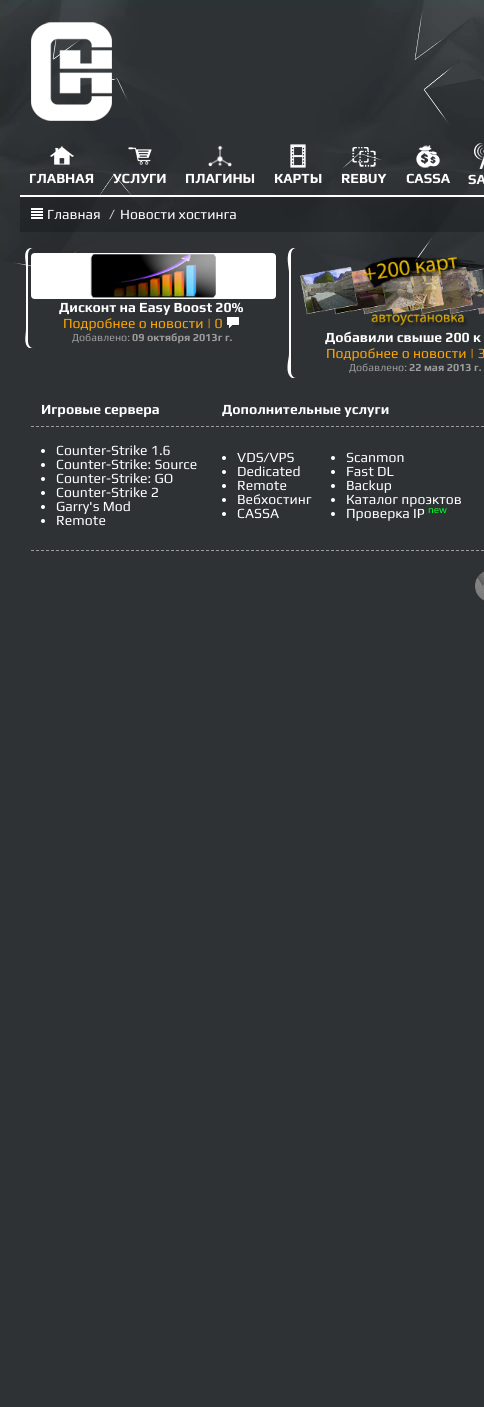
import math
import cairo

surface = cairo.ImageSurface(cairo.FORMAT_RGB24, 484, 1407)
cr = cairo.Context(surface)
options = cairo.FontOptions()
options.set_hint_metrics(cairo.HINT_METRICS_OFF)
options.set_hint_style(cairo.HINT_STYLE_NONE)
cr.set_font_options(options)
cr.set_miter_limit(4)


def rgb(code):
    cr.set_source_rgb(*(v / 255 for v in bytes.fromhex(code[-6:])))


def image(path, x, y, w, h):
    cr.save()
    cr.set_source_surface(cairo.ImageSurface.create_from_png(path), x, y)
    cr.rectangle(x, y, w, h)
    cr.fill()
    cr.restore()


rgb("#2e3235")
cr.paint()
image("img/1.png", 0, 0, 484, 289)
image("img/2.png", 31, 22, 81, 99)
image("img/3.png", 50, 146, 24, 19)
image("img/4.png", 128, 147, 24, 18)
image("img/5.png", 208, 145, 24, 22)
image("img/6.png", 290, 144, 16, 24)
image("img/7.png", 352, 147, 24, 20)
image("img/8.png", 416, 145, 24, 23)
image("img/9.png", 474, 143, 10, 26)
rgb("#ffffff")
cr.rectangle(20, 195, 464, 2)
cr.fill()
cr.set_source_rgba(0, 0, 0, 0.2)
cr.rectangle(20, 197, 464, 35)
cr.fill()
image("img/10.png", 31, 208, 12, 12)
image("img/11.png", 31, 253, 245, 46)
rgb("#ffffff")
cr.new_path()
cr.move_to(30, 248)
cr.line_to(28, 249)
cr.curve_to(23, 253, 26, 261, 26, 267)
cr.line_to(26, 329)
cr.curve_to(26, 335, 23, 344, 29, 348)
cr.line_to(33, 348)
cr.curve_to(30, 348, 28, 345, 28, 341)
cr.line_to(28, 255)
cr.curve_to(28, 251, 30, 248, 33, 248)
cr.close_path()
cr.fill()
image("img/12.png", 227, 317, 12, 12)
cr.new_path()
cr.move_to(293, 248)
cr.line_to(291, 249)
cr.curve_to(285, 254, 289, 268, 289, 272)
cr.line_to(289, 354)
cr.curve_to(289, 359, 284, 373, 292, 378)
cr.line_to(296, 378)
cr.curve_to(293, 378, 291, 375, 291, 371)
cr.line_to(291, 255)
cr.curve_to(291, 251, 293, 248, 296, 248)
cr.close_path()
cr.fill()
image("img/13.png", 300, 256, 184, 72)
cr.new_path()
cr.move_to(31, 426.5)
cr.line_to(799, 426.5)
rgb("#9c9c9c")
cr.set_line_width(1)
cr.set_dash([3, 2])
cr.stroke()
rgb("#ffffff")
cr.arc(43, 451, 2, 0, 2 * math.pi)
cr.fill()
cr.arc(43, 465, 2, 0, 2 * math.pi)
cr.fill()
cr.arc(43, 479, 2, 0, 2 * math.pi)
cr.fill()
cr.arc(43, 493, 2, 0, 2 * math.pi)
cr.fill()
cr.arc(43, 507, 2, 0, 2 * math.pi)
cr.fill()
cr.arc(43, 521, 2, 0, 2 * math.pi)
cr.fill()
cr.arc(224, 458, 2, 0, 2 * math.pi)
cr.fill()
cr.arc(224, 472, 2, 0, 2 * math.pi)
cr.fill()
cr.arc(224, 486, 2, 0, 2 * math.pi)
cr.fill()
cr.arc(224, 500, 2, 0, 2 * math.pi)
cr.fill()
cr.arc(224, 514, 2, 0, 2 * math.pi)
cr.fill()
cr.arc(333, 458, 2, 0, 2 * math.pi)
cr.fill()
cr.arc(333, 472, 2, 0, 2 * math.pi)
cr.fill()
cr.arc(333, 486, 2, 0, 2 * math.pi)
cr.fill()
cr.arc(333, 500, 2, 0, 2 * math.pi)
cr.fill()
cr.arc(333, 514, 2, 0, 2 * math.pi)
cr.fill()
cr.new_path()
cr.move_to(31, 550.5)
cr.line_to(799, 550.5)
rgb("#9c9c9c")
cr.stroke()
image("img/14.png", 475, 571, 9, 30)
cr.select_font_face("Play", cairo.FONT_SLANT_NORMAL, cairo.FONT_WEIGHT_BOLD)
cr.set_font_size(14)
rgb("#ffffff")
for x, y, s in [
    (29, 183, "ГЛАВНАЯ"),
    (113, 183, "УСЛУГИ"),
    (185, 183, "ПЛАГИНЫ"),
    (274, 183, "КАРТЫ"),
    (341, 183, "REBUY"),
    (406, 183, "CASSA"),
    (468, 184, "SA"),
]:
    cr.move_to(x, y)
    cr.show_text(s)
cr.select_font_face("Play")
cr.move_to(47, 219)
cr.show_text("Главная")
rgb("#cccccc")
cr.move_to(109, 219)
cr.show_text("/")
rgb("#ffffff")
cr.move_to(120, 219)
cr.show_text("Новости хостинга")
cr.select_font_face("Play", cairo.FONT_SLANT_NORMAL, cairo.FONT_WEIGHT_BOLD)
cr.move_to(59, 312)
cr.show_text("Дисконт на Easy Boost 20%")
cr.select_font_face("Play")
rgb("#ffa500")
cr.move_to(63, 328)
cr.show_text("Подробнее о новости | 0")
cr.set_font_size(10.75)
rgb("#9c9c9c")
cr.move_to(72, 341)
cr.show_text("Добавлено:")
cr.select_font_face("Play", cairo.FONT_SLANT_NORMAL, cairo.FONT_WEIGHT_BOLD)
cr.move_to(132, 341)
cr.show_text("09 октября 2013г г.")
cr.set_font_size(14)
rgb("#ffffff")
cr.move_to(325, 342)
cr.show_text("Добавили свыше 200 к")
cr.select_font_face("Play")
rgb("#ffa500")
cr.move_to(326, 358)
cr.show_text("Подробнее о новости | 3")
cr.set_font_size(10.75)
rgb("#9c9c9c")
cr.move_to(349, 371)
cr.show_text("Добавлено:")
cr.select_font_face("Play", cairo.FONT_SLANT_NORMAL, cairo.FONT_WEIGHT_BOLD)
cr.move_to(409, 371)
cr.show_text("22 мая 2013 г.")
cr.set_font_size(14)
rgb("#ffffff")
cr.move_to(41, 414)
cr.show_text("Игровые сервера")
cr.move_to(222, 414)
cr.show_text("Дополнительные услуги")
cr.select_font_face("Play")
for x, y, s in [
    (56, 455, "Counter-Strike 1.6"),
    (56, 469, "Counter-Strike: Source"),
    (56, 483, "Counter-Strike: GO"),
    (56, 497, "Counter-Strike 2"),
    (56, 511, "Garry's Mod"),
    (56, 525, "Remote"),
    (237, 462, "VDS/VPS"),
    (237, 476, "Dedicated"),
    (237, 490, "Remote"),
    (237, 504, "Вебхостинг"),
    (237, 518, "CASSA"),
    (346, 462, "Scanmon"),
    (346, 476, "Fast DL"),
    (346, 490, "Backup"),
    (346, 504, "Каталог проэктов"),
    (346, 518, "Проверка IP"),
]:
    cr.move_to(x, y)
    cr.show_text(s)
cr.set_font_size(10)
rgb("#00ff26")
cr.move_to(428, 513)
cr.show_text("new")
surface.write_to_png("page.png")
